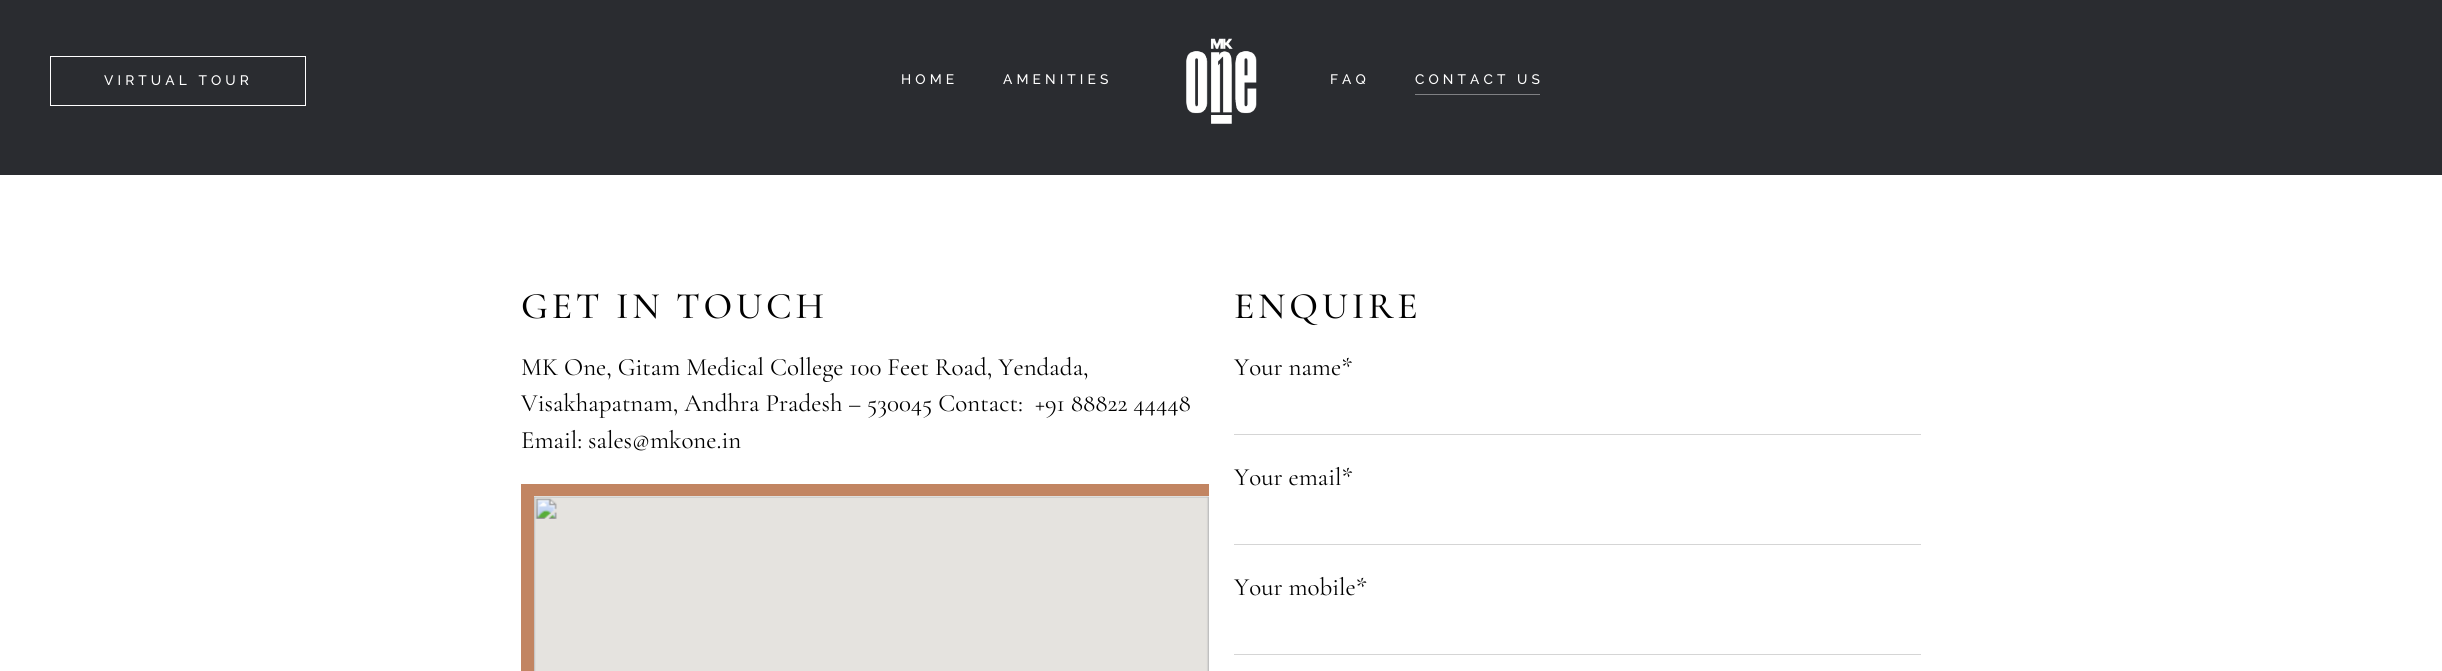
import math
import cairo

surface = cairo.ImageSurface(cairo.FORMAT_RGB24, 2442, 671)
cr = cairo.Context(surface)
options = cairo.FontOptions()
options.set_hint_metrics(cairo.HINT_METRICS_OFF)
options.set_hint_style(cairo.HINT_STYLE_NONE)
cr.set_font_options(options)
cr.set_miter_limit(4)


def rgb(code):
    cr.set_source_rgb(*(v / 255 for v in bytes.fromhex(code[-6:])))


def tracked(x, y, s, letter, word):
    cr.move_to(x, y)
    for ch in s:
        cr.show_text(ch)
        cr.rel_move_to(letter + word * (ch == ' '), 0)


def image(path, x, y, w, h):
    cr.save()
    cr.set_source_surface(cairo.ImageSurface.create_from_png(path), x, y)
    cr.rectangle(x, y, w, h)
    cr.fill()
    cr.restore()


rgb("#ffffff")
cr.paint()
rgb("#2a2c30")
cr.rectangle(0, 0, 2442, 175)
cr.fill()
cr.rectangle(50.5, 56.5, 255, 49)
rgb("#ffffff")
cr.set_line_width(1)
cr.stroke()
image("img/1.png", 1186, 38, 71, 86)
for x, y, w, h, color in [
    (1415, 94, 125, 1, "#7f8083"),
    (534, 484, 675, 12, "#c28562"),
    (521, 484, 13, 187, "#c28562"),
]:
    rgb(color)
    cr.rectangle(x, y, w, h)
    cr.fill()
image("img/2.png", 534, 496, 675, 175)
for x, y, w, h, color in [
    (1234, 434, 687, 1, "#d5d5d5"),
    (1234, 544, 687, 1, "#d5d5d5"),
    (1234, 654, 687, 1, "#d5d5d5"),
]:
    rgb(color)
    cr.rectangle(x, y, w, h)
    cr.fill()
cr.select_font_face("Raleway Medium")
cr.set_font_size(13.75)
rgb("#ffffff")
for x, y, s in [
    (104, 85, "VIRTUAL TOUR"),
    (901, 84, "HOME"),
    (1003, 84, "AMENITIES"),
    (1330, 84, "FAQ"),
    (1415, 84, "CONTACT US"),
]:
    tracked(x, y, s, 4.1, 0)
cr.select_font_face("Cormorant Garamond Medium")
cr.set_font_size(37.5)
rgb("#000000")
tracked(521, 318, "GET IN TOUCH", 3.75, 0)
cr.select_font_face("Cormorant Garamond")
cr.set_font_size(25)
for x, y, s in [
    (521, 375, "MK One, Gitam Medical College 100 Feet Road, Yendada,"),
    (521, 411, "Visakhapatnam, Andhra Pradesh – 530045 Contact:"),
    (1035, 411, "+91 88822 44448"),
    (521, 448, "Email: sales@mkone.in"),
]:
    cr.move_to(x, y)
    cr.show_text(s)
cr.select_font_face("Cormorant Garamond Medium")
cr.set_font_size(37.5)
tracked(1234, 318, "ENQUIRE", 3.75, 0)
cr.select_font_face("Cormorant Garamond")
cr.set_font_size(25)
for x, y, s in [
    (1234, 375, "Your name*"),
    (1234, 485, "Your email*"),
    (1234, 595, "Your mobile*"),
]:
    cr.move_to(x, y)
    cr.show_text(s)
surface.write_to_png("page.png")
